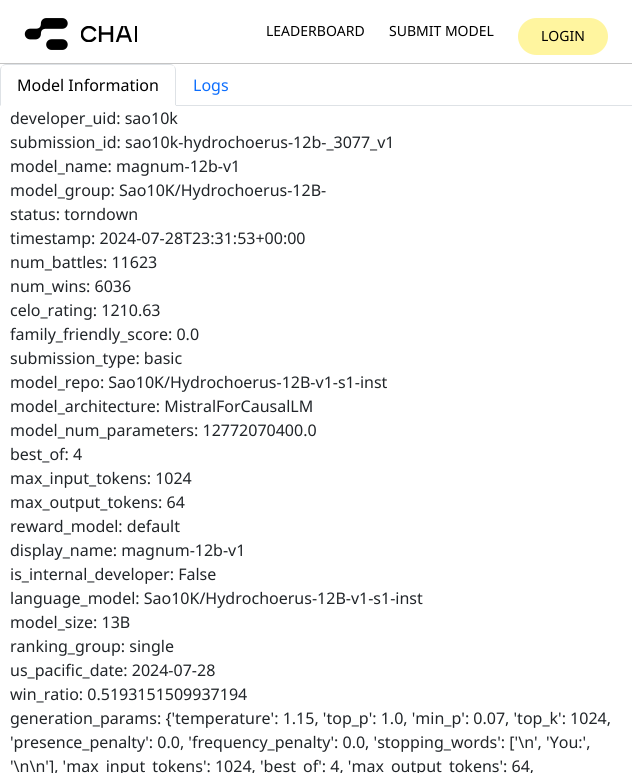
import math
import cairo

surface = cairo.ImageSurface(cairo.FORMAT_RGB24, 632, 773)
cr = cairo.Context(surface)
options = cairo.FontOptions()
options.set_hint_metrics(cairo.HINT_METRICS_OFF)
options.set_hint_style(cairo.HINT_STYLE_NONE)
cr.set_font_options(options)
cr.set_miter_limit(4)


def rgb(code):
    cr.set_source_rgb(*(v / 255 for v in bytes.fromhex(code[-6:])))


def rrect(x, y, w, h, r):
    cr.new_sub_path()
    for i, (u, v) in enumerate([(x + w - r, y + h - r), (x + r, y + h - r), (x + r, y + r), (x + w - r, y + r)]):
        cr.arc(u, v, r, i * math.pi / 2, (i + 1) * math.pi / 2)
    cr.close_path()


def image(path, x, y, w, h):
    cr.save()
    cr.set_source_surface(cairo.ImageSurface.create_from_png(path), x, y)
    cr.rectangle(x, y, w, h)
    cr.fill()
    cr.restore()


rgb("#ffffff")
cr.paint()
rgb("#c4c4c4")
cr.rectangle(0, 63, 632, 1)
cr.fill()
image("img/1.png", 24, 18, 113, 32)
rgb("#fff59f")
rrect(518, 18, 90, 37, 18.5)
cr.fill()
rgb("#dee2e6")
cr.rectangle(176, 105, 456, 1)
cr.fill()
cr.new_path()
cr.move_to(6, 64)
cr.curve_to(4, 64, 3, 65, 2, 66)
cr.curve_to(3, 66, 4, 65, 6, 65)
cr.line_to(170, 65)
cr.curve_to(172, 65, 173, 66, 174, 66)
cr.curve_to(173, 65, 172, 64, 170, 64)
cr.close_path()
cr.fill()
cr.new_path()
cr.move_to(176, 106)
cr.line_to(176, 70)
cr.curve_to(176, 68, 175, 67, 174, 66)
cr.curve_to(174, 67, 175, 68, 175, 70)
cr.line_to(175, 105)
cr.close_path()
cr.fill()
rgb("#ffffff")
cr.new_path()
cr.move_to(176, 106)
cr.line_to(175, 105)
cr.line_to(1, 105)
cr.line_to(0, 106)
cr.close_path()
cr.fill()
rgb("#dee2e6")
cr.new_path()
cr.move_to(0, 106)
cr.line_to(1, 105)
cr.line_to(1, 70)
cr.curve_to(1, 68, 2, 67, 2, 66)
cr.curve_to(1, 67, 0, 68, 0, 70)
cr.close_path()
cr.fill()
cr.select_font_face("Noto Sans")
cr.set_font_size(14)
rgb("#000000")
for x, y, s in [
    (266, 36, "LEADERBOARD"),
    (389, 36, "SUBMIT MODEL"),
    (541, 41, "LOGIN"),
]:
    cr.move_to(x, y)
    cr.show_text(s)
cr.set_font_size(16)
cr.move_to(17, 91)
cr.show_text("Model Information")
rgb("#0d6efd")
cr.move_to(193, 91)
cr.show_text("Logs")
rgb("#212529")
for x, y, s in [
    (10, 124, "developer_uid: sao10k"),
    (10, 148, "submission_id: sao10k-hydrochoerus-12b-_3077_v1"),
    (10, 172, "model_name: magnum-12b-v1"),
    (10, 196, "model_group: Sao10K/Hydrochoerus-12B-"),
    (10, 220, "status: torndown"),
    (10, 244, "timestamp: 2024-07-28T23:31:53+00:00"),
    (10, 268, "num_battles: 11623"),
    (10, 292, "num_wins: 6036"),
    (10, 316, "celo_rating: 1210.63"),
    (10, 340, "family_friendly_score: 0.0"),
    (10, 364, "submission_type: basic"),
    (10, 388, "model_repo: Sao10K/Hydrochoerus-12B-v1-s1-inst"),
    (10, 412, "model_architecture: MistralForCausalLM"),
    (10, 436, "model_num_parameters: 12772070400.0"),
    (10, 460, "best_of: 4"),
    (10, 484, "max_input_tokens: 1024"),
    (10, 508, "max_output_tokens: 64"),
    (10, 532, "reward_model: default"),
    (10, 556, "display_name: magnum-12b-v1"),
    (10, 580, "is_internal_developer: False"),
    (10, 604, "language_model: Sao10K/Hydrochoerus-12B-v1-s1-inst"),
    (10, 628, "model_size: 13B"),
    (10, 652, "ranking_group: single"),
    (10, 676, "us_pacific_date: 2024-07-28"),
    (10, 700, "win_ratio: 0.5193151509937194"),
    (10, 724, "generation_params: {'temperature': 1.15, 'top_p': 1.0, 'min_p': 0.07, 'top_k': 1024,"),
    (10, 748, "'presence_penalty': 0.0, 'frequency_penalty': 0.0, 'stopping_words': ['\\n', 'You:',"),
    (10, 772, "'\\n\\n'], 'max_input_tokens': 1024, 'best_of': 4, 'max_output_tokens': 64,"),
]:
    cr.move_to(x, y)
    cr.show_text(s)
surface.write_to_png("page.png")
